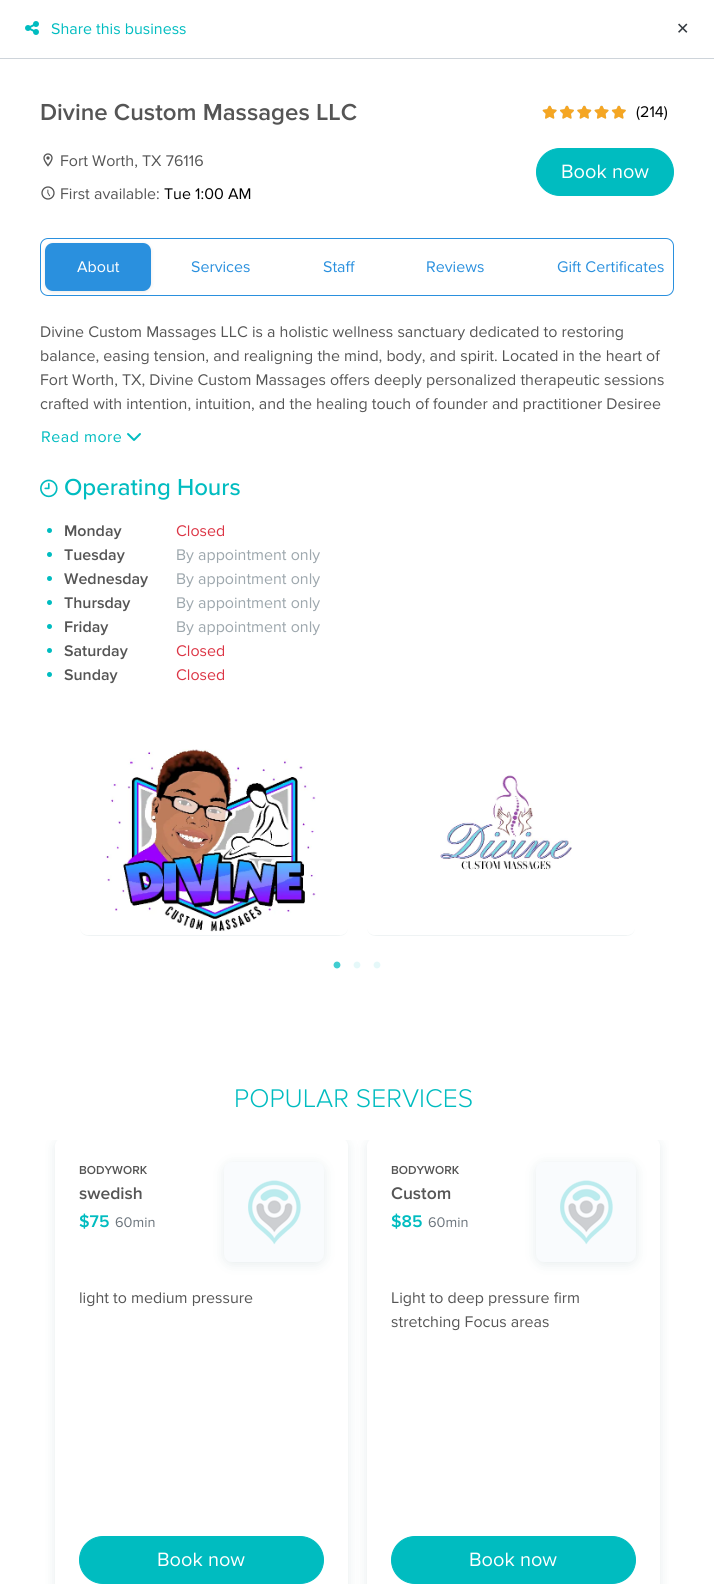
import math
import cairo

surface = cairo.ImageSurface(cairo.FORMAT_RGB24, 714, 1584)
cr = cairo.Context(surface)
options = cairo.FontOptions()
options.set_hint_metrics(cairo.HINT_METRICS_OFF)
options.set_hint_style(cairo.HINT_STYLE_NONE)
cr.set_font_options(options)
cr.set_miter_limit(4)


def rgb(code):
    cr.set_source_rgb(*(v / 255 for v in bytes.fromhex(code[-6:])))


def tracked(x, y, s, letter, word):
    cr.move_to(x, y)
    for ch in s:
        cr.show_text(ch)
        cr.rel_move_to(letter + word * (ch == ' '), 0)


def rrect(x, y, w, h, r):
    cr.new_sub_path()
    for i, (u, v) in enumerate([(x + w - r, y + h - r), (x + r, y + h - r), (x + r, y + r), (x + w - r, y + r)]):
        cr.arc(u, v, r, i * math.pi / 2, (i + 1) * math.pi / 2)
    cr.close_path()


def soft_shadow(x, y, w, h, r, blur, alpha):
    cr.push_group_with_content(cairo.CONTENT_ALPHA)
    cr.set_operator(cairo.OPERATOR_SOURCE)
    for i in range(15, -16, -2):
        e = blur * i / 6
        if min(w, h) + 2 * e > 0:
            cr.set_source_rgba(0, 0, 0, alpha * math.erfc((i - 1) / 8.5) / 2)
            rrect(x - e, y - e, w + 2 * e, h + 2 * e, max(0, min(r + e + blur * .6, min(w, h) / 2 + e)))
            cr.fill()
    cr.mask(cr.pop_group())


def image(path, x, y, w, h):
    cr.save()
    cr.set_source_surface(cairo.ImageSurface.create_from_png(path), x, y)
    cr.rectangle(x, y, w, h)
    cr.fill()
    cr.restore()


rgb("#ffffff")
cr.paint()
rgb("#ced4da")
cr.rectangle(0, 58, 714, 1)
cr.fill()
image("img/1.png", 25, 21, 14, 14)
image("img/2.png", 43, 153, 10, 14)
image("img/3.png", 41, 186, 14, 14)
image("img/4.png", 542, 105, 84, 14)
image("img/5.png", 542, 106, 84, 13)
rgb("#00bcc0")
rrect(536.5, 148.5, 137, 47, 23.5)
cr.fill_preserve()
cr.set_line_width(1)
cr.stroke()
rrect(40.5, 238.5, 633, 57, 7.5)
rgb("#2a90de")
cr.stroke()
rgb("#121212")
soft_shadow(45, 244, 106, 48, 8, 2, 0.1)
rgb("#2a90de")
rrect(45, 243, 106, 48, 8)
cr.fill()
image("img/6.png", 127, 433, 14, 8)
image("img/7.png", 40, 479, 18, 19)
rgb("#00bcc0")
cr.arc(49.5, 530.5, 2.5, 0, 2 * math.pi)
cr.fill()
cr.arc(49.5, 554.5, 2.5, 0, 2 * math.pi)
cr.fill()
cr.arc(49.5, 578.5, 2.5, 0, 2 * math.pi)
cr.fill()
cr.arc(49.5, 602.5, 2.5, 0, 2 * math.pi)
cr.fill()
cr.arc(49.5, 626.5, 2.5, 0, 2 * math.pi)
cr.fill()
cr.arc(49.5, 650.5, 2.5, 0, 2 * math.pi)
cr.fill()
cr.arc(49.5, 674.5, 2.5, 0, 2 * math.pi)
cr.fill()
cr.save()
rrect(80, 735, 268, 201, 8)
cr.clip()
cr.set_fill_rule(cairo.FILL_RULE_EVEN_ODD)
cr.new_path()
cr.move_to(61, 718)
cr.line_to(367, 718)
cr.line_to(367, 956)
cr.line_to(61, 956)
cr.close_path()
cr.move_to(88, 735)
cr.line_to(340, 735)
cr.curve_to(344.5, 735, 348, 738.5, 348, 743)
cr.line_to(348, 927)
cr.curve_to(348, 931.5, 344.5, 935, 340, 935)
cr.line_to(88, 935)
cr.curve_to(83.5, 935, 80, 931.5, 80, 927)
cr.line_to(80, 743)
cr.curve_to(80, 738.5, 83.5, 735, 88, 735)
cr.close_path()
cr.clip()
rgb("#03464a")
soft_shadow(80, 737, 268, 200, 8, 6, 0.1)
cr.restore()
image("img/8.png", 105, 749, 211, 183)
cr.save()
rrect(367, 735, 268, 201, 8)
cr.clip()
cr.set_fill_rule(cairo.FILL_RULE_EVEN_ODD)
cr.new_path()
cr.move_to(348, 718)
cr.line_to(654, 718)
cr.line_to(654, 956)
cr.line_to(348, 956)
cr.close_path()
cr.move_to(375, 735)
cr.line_to(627, 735)
cr.curve_to(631.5, 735, 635, 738.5, 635, 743)
cr.line_to(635, 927)
cr.curve_to(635, 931.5, 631.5, 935, 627, 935)
cr.line_to(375, 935)
cr.curve_to(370.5, 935, 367, 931.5, 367, 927)
cr.line_to(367, 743)
cr.curve_to(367, 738.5, 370.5, 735, 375, 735)
cr.close_path()
cr.clip()
rgb("#03464a")
soft_shadow(367, 737, 268, 200, 8, 6, 0.1)
cr.restore()
image("img/9.png", 440, 775, 132, 95)
image("img/10.png", 333, 961, 8, 8)
image("img/11.png", 353, 961, 8, 8)
image("img/11.png", 373, 961, 8, 8)
cr.save()
cr.rectangle(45, 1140, 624, 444)
cr.clip()
rgb("#03464a")
soft_shadow(55, 1140, 293, 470, 8, 6, 0.1)
cr.restore()
cr.save()
cr.rectangle(45, 1140, 624, 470)
cr.clip()
rgb("#ffffff")
cr.new_path()
cr.move_to(63, 1138)
cr.line_to(340, 1138)
cr.curve_to(344.5, 1138, 348, 1141.5, 348, 1146)
cr.line_to(348, 1584)
cr.line_to(55, 1584)
cr.line_to(55, 1146)
cr.curve_to(55, 1141.5, 58.5, 1138, 63, 1138)
cr.close_path()
cr.fill()
cr.restore()
rgb("#03464a")
soft_shadow(224, 1164, 100, 100, 8, 6, 0.1)
image("img/12.png", 224, 1162, 100, 100)
rgb("#00bcc0")
rrect(79.5, 1536.5, 244, 47, 23.5)
cr.fill_preserve()
cr.stroke()
cr.save()
cr.rectangle(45, 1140, 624, 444)
cr.clip()
rgb("#03464a")
soft_shadow(367, 1140, 293, 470, 8, 6, 0.1)
cr.restore()
cr.save()
cr.rectangle(45, 1140, 624, 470)
cr.clip()
rgb("#ffffff")
cr.new_path()
cr.move_to(375, 1138)
cr.line_to(652, 1138)
cr.curve_to(656.5, 1138, 660, 1141.5, 660, 1146)
cr.line_to(660, 1584)
cr.line_to(367, 1584)
cr.line_to(367, 1146)
cr.curve_to(367, 1141.5, 370.5, 1138, 375, 1138)
cr.close_path()
cr.fill()
cr.restore()
rgb("#03464a")
soft_shadow(536, 1164, 100, 100, 8, 6, 0.1)
image("img/12.png", 536, 1162, 100, 100)
rgb("#00bcc0")
rrect(391.5, 1536.5, 244, 47, 23.5)
cr.fill_preserve()
cr.stroke()
cr.select_font_face("Proxima Nova")
cr.set_font_size(16)
cr.move_to(51, 34)
cr.show_text("Share this business")
cr.select_font_face("DejaVu Sans")
rgb("#343a40")
tracked(676, 34, "✕", 0.5, 0)
cr.select_font_face("Proxima Nova SemiBold")
cr.set_font_size(24)
rgb("#555555")
cr.move_to(40, 120)
cr.show_text("Divine Custom Massages LLC")
cr.select_font_face("Proxima Nova")
cr.set_font_size(16)
cr.move_to(60, 166)
cr.show_text("Fort Worth, TX 76116")
cr.move_to(60, 199)
cr.show_text("First available:")
rgb("#000000")
cr.move_to(164, 199)
cr.show_text("Tue 1:00 AM")
cr.move_to(636, 117)
cr.show_text("(214)")
cr.set_font_size(20)
rgb("#ffffff")
cr.move_to(561, 178)
cr.show_text("Book now")
cr.set_font_size(16)
cr.move_to(77, 272)
cr.show_text("About")
rgb("#2a90de")
for x, y, s in [
    (191, 272, "Services"),
    (323, 272, "Staff"),
    (426, 272, "Reviews"),
    (557, 272, "Gift Certificates"),
]:
    cr.move_to(x, y)
    cr.show_text(s)
rgb("#555555")
for x, y, s in [
    (40, 337, "Divine Custom Massages LLC is a holistic wellness sanctuary dedicated to restoring"),
    (40, 361, "balance, easing tension, and realigning the mind, body, and spirit. Located in the heart of"),
    (40, 385, "Fort Worth, TX, Divine Custom Massages offers deeply personalized therapeutic sessions"),
    (40, 409, "crafted with intention, intuition, and the healing touch of founder and practitioner Desiree"),
]:
    cr.move_to(x, y)
    cr.show_text(s)
rgb("#00bcc0")
tracked(41, 442, "Read more", 0.5, 0)
cr.select_font_face("Proxima Nova Medium")
cr.set_font_size(24)
cr.move_to(64, 495)
cr.show_text("Operating Hours")
cr.select_font_face("Proxima Nova SemiBold")
cr.set_font_size(16)
rgb("#555555")
cr.move_to(64, 536)
cr.show_text("Monday")
cr.select_font_face("Proxima Nova")
rgb("#dc3545")
cr.move_to(176, 536)
cr.show_text("Closed")
cr.select_font_face("Proxima Nova SemiBold")
rgb("#555555")
cr.move_to(64, 560)
cr.show_text("Tuesday")
cr.select_font_face("Proxima Nova")
rgb("#9da7ad")
cr.move_to(176, 560)
cr.show_text("By appointment only")
cr.select_font_face("Proxima Nova SemiBold")
rgb("#555555")
cr.move_to(64, 584)
cr.show_text("Wednesday")
cr.select_font_face("Proxima Nova")
rgb("#9da7ad")
cr.move_to(176, 584)
cr.show_text("By appointment only")
cr.select_font_face("Proxima Nova SemiBold")
rgb("#555555")
cr.move_to(64, 608)
cr.show_text("Thursday")
cr.select_font_face("Proxima Nova")
rgb("#9da7ad")
cr.move_to(176, 608)
cr.show_text("By appointment only")
cr.select_font_face("Proxima Nova SemiBold")
rgb("#555555")
cr.move_to(64, 632)
cr.show_text("Friday")
cr.select_font_face("Proxima Nova")
rgb("#9da7ad")
cr.move_to(176, 632)
cr.show_text("By appointment only")
cr.select_font_face("Proxima Nova SemiBold")
rgb("#555555")
cr.move_to(64, 656)
cr.show_text("Saturday")
cr.select_font_face("Proxima Nova")
rgb("#dc3545")
cr.move_to(176, 656)
cr.show_text("Closed")
cr.select_font_face("Proxima Nova SemiBold")
rgb("#555555")
cr.move_to(64, 680)
cr.show_text("Sunday")
cr.select_font_face("Proxima Nova")
rgb("#dc3545")
cr.move_to(176, 680)
cr.show_text("Closed")
cr.select_font_face("Proxima Nova Light")
cr.set_font_size(26.5)
rgb("#00bcc0")
cr.move_to(234, 1107)
cr.show_text("POPULAR SERVICES")
cr.select_font_face("Proxima Nova SemiBold")
cr.set_font_size(12)
rgb("#555555")
cr.move_to(79, 1174)
cr.show_text("BODYWORK")
cr.set_font_size(17.5)
cr.move_to(79, 1199)
cr.show_text("swedish")
rgb("#00bcc0")
cr.move_to(79, 1227)
cr.show_text("$75")
cr.select_font_face("Proxima Nova")
cr.set_font_size(14.5)
rgb("#6c757d")
cr.move_to(115, 1227)
cr.show_text("60min")
cr.set_font_size(16)
rgb("#555555")
cr.move_to(79, 1303)
cr.show_text("light to medium pressure")
cr.set_font_size(20)
rgb("#ffffff")
cr.move_to(157, 1566)
cr.show_text("Book now")
cr.select_font_face("Proxima Nova SemiBold")
cr.set_font_size(12)
rgb("#555555")
cr.move_to(391, 1174)
cr.show_text("BODYWORK")
cr.set_font_size(17.5)
cr.move_to(391, 1199)
cr.show_text("Custom")
rgb("#00bcc0")
cr.move_to(391, 1227)
cr.show_text("$85")
cr.select_font_face("Proxima Nova")
cr.set_font_size(14.5)
rgb("#6c757d")
cr.move_to(428, 1227)
cr.show_text("60min")
cr.set_font_size(16)
rgb("#555555")
cr.move_to(391, 1303)
cr.show_text("Light to deep pressure firm")
cr.move_to(391, 1327)
cr.show_text("stretching Focus areas")
cr.set_font_size(20)
rgb("#ffffff")
cr.move_to(469, 1566)
cr.show_text("Book now")
surface.write_to_png("page.png")
